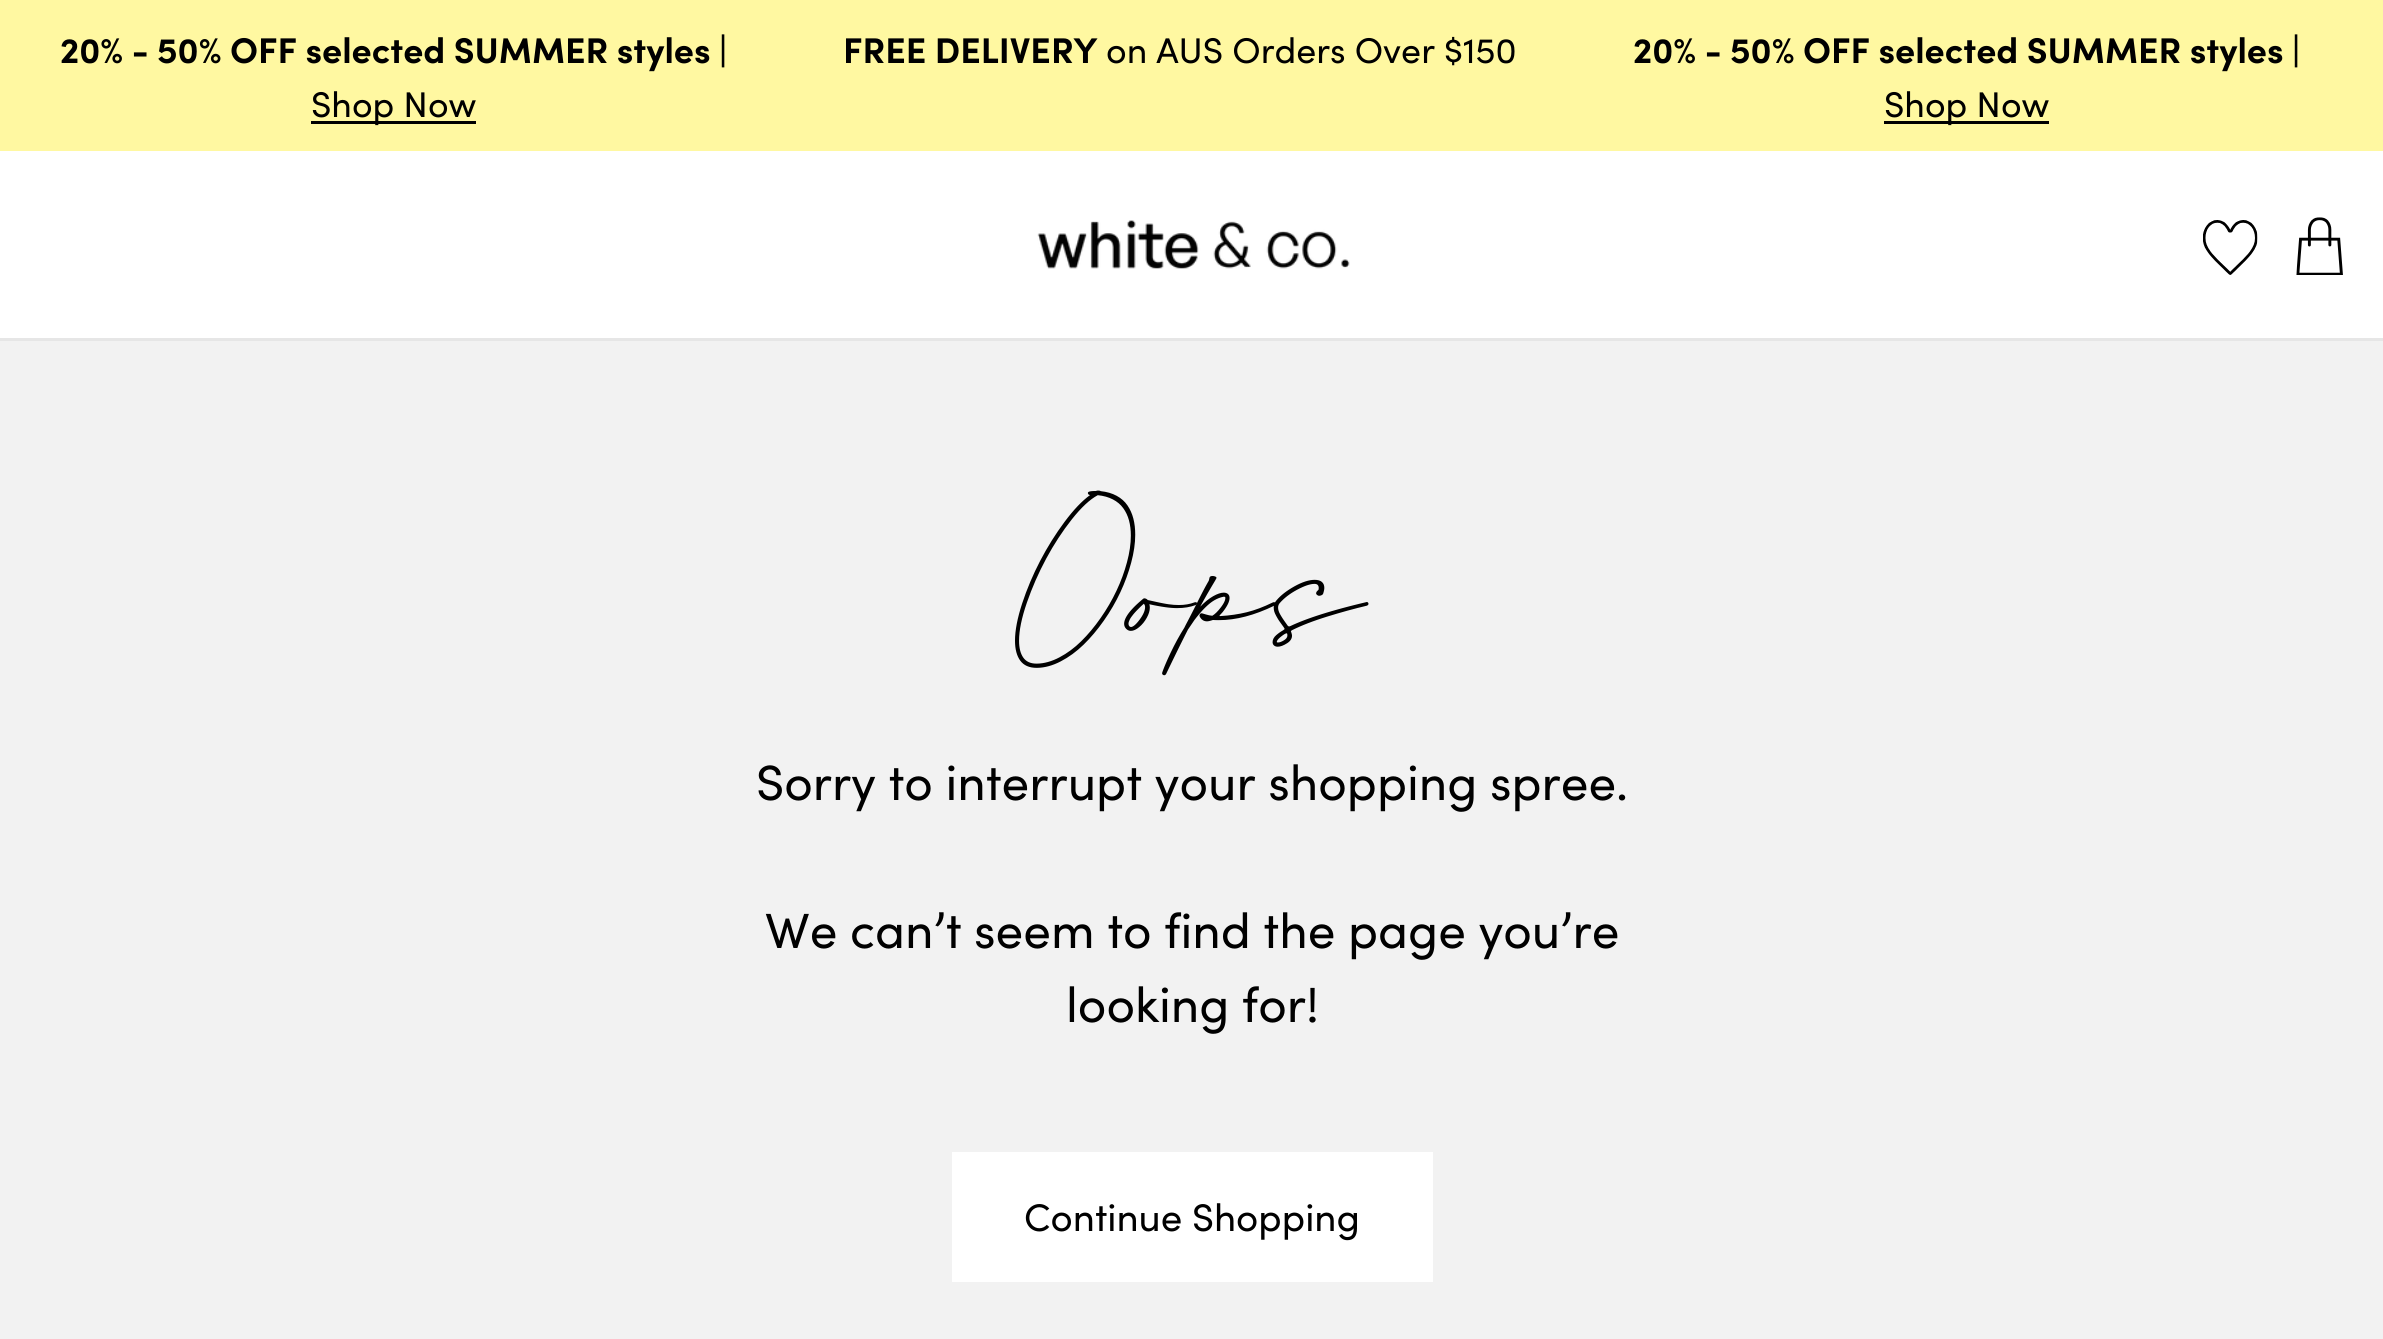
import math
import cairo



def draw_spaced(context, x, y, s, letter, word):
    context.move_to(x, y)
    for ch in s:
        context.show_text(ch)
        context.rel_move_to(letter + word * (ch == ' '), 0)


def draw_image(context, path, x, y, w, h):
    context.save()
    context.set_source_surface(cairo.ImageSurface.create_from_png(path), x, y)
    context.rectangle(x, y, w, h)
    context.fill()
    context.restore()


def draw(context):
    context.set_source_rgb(242 / 255, 242 / 255, 242 / 255)
    context.paint()
    context.set_source_rgb(1, 248 / 255, 161 / 255)
    context.rectangle(0, 0, 2383, 151)
    context.fill()
    context.set_source_rgb(0, 0, 0)
    context.rectangle(311, 121, 165, 3)
    context.fill()
    context.rectangle(1884, 121, 165, 3)
    context.fill()
    context.set_source_rgb(1, 1, 1)
    context.rectangle(0, 151, 2383, 187)
    context.fill()
    context.set_source_rgb(230 / 255, 230 / 255, 230 / 255)
    context.rectangle(0, 338, 2383, 3)
    context.fill()
    draw_image(context, "images/1.png", 1037, 220, 313, 49)
    draw_image(context, "images/2.png", 2203, 220, 55, 55)
    draw_image(context, "images/3.png", 2296, 217, 47, 58)
    context.set_source_rgb(1, 1, 1)
    context.rectangle(952, 1152, 481, 130)
    context.fill()
    context.select_font_face("Sofia", cairo.FontSlant.NORMAL, cairo.FontWeight.BOLD)
    context.set_font_size(35.75)
    context.set_source_rgb(0, 0, 0)
    context.move_to(60, 63)
    context.show_text("20% - 50% OFF selected SUMMER styles |")
    context.select_font_face("Sofia")
    context.move_to(311, 117)
    context.show_text("Shop Now")
    context.select_font_face("Sofia", cairo.FontSlant.NORMAL, cairo.FontWeight.BOLD)
    context.move_to(843, 63)
    context.show_text("FREE DELIVERY")
    context.select_font_face("Sofia")
    context.move_to(1106, 63)
    context.show_text("on AUS Orders Over $150")
    context.select_font_face("Sofia", cairo.FontSlant.NORMAL, cairo.FontWeight.BOLD)
    context.move_to(1633, 63)
    context.show_text("20% - 50% OFF selected SUMMER styles |")
    context.select_font_face("Sofia")
    context.move_to(1884, 117)
    context.show_text("Shop Now")
    context.select_font_face("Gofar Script")
    context.set_font_size(176)
    draw_spaced(context, 1015, 643, "Oops", 2.5, 0)
    context.select_font_face("Sofia")
    context.set_font_size(49.5)
    context.move_to(756, 800)
    context.show_text("Sorry to interrupt your shopping spree.")
    context.move_to(765, 948)
    context.show_text("We can’t seem to find the page you’re")
    context.move_to(1066, 1022)
    context.show_text("looking for!")
    context.set_font_size(38.5)
    context.move_to(1024, 1231)
    context.show_text("Continue Shopping")


surface = cairo.ImageSurface(cairo.Format.RGB24, 2383, 1339)
context = cairo.Context(surface)
options = cairo.FontOptions()
options.set_hint_metrics(cairo.HintMetrics.OFF)
options.set_hint_style(cairo.HintStyle.NONE)
context.set_font_options(options)
context.set_miter_limit(4)
draw(context)
surface.write_to_png("out.png")
